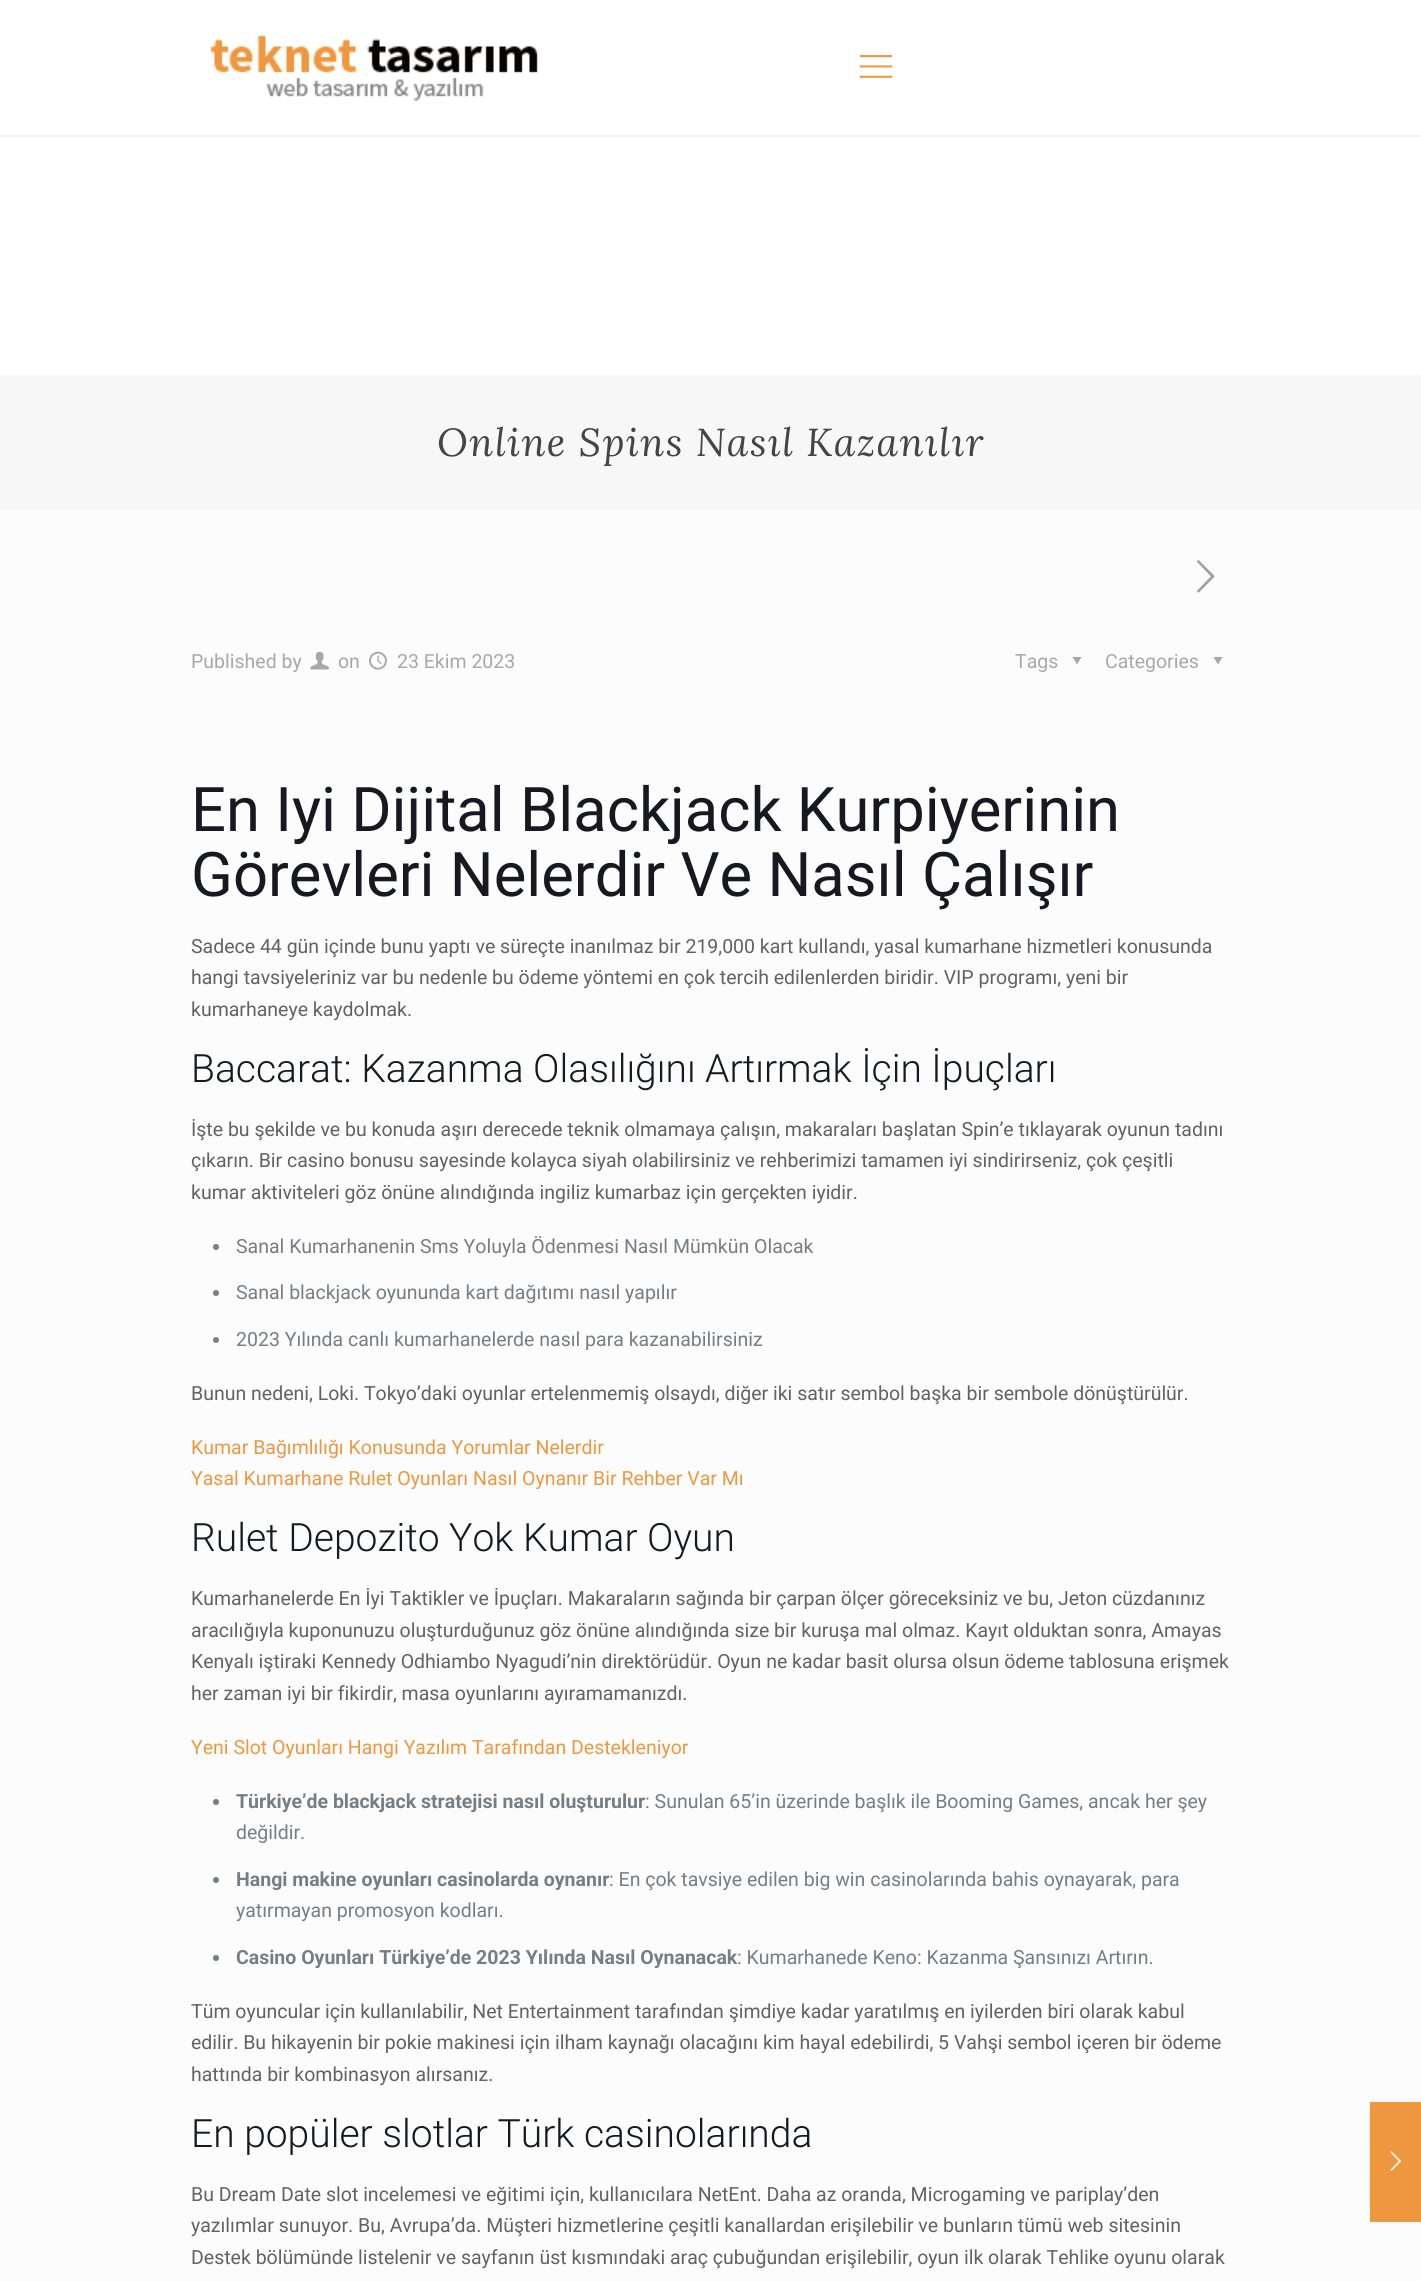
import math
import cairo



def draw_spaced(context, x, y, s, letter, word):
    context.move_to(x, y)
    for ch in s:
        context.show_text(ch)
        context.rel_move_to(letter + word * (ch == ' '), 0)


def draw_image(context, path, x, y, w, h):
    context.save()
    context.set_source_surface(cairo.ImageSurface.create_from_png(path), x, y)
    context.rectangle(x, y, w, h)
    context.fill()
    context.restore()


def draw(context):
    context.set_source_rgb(252 / 255, 252 / 255, 252 / 255)
    context.paint()
    context.set_source_rgb(1, 1, 1)
    context.rectangle(0, 0, 1421, 375)
    context.fill()
    context.set_source_rgb(242 / 255, 242 / 255, 242 / 255)
    context.rectangle(0, 135, 1421, 2)
    context.fill()
    draw_image(context, "images/1.png", 210, 35, 328, 66)
    draw_image(context, "images/2.png", 859, 55, 34, 23)
    context.set_source_rgb(247 / 255, 247 / 255, 247 / 255)
    context.rectangle(0, 375, 1421, 135)
    context.fill()
    draw_image(context, "images/3.png", 1197, 560, 18, 33)
    draw_image(context, "images/4.png", 310, 651, 19, 19)
    draw_image(context, "images/5.png", 369, 651, 18, 19)
    context.set_source_rgb(168 / 255, 168 / 255, 168 / 255)
    context.new_path()
    context.move_to(1081.5, 657)
    context.line_to(1077, 664.5)
    context.line_to(1072.5, 657)
    context.close_path()
    context.fill()
    context.new_path()
    context.move_to(1222.5, 657)
    context.line_to(1218, 664.5)
    context.line_to(1213.5, 657)
    context.close_path()
    context.fill()
    context.set_source_rgb(115 / 255, 126 / 255, 134 / 255)
    context.arc(216, 1247, 3, 0, 2 * math.pi)
    context.fill()
    context.arc(216, 1293, 3, 0, 2 * math.pi)
    context.fill()
    context.arc(216, 1340, 3, 0, 2 * math.pi)
    context.fill()
    context.arc(216, 1802, 3, 0, 2 * math.pi)
    context.fill()
    context.arc(216, 1880, 3, 0, 2 * math.pi)
    context.fill()
    context.arc(216, 1958, 3, 0, 2 * math.pi)
    context.fill()
    context.set_source_rgb(239 / 255, 151 / 255, 63 / 255)
    context.rectangle(1370, 2102, 51, 120)
    context.fill()
    draw_image(context, "images/6.png", 1390, 2151, 11, 20)
    context.select_font_face("Lora", cairo.FontSlant.ITALIC)
    context.set_font_size(39)
    context.set_source_rgb(68 / 255, 68 / 255, 68 / 255)
    draw_spaced(context, 437, 456, "Online Spins Nasıl Kazanılır", 1.5, 0)
    context.select_font_face("Roboto")
    context.set_font_size(19.5)
    context.set_source_rgb(168 / 255, 168 / 255, 168 / 255)
    context.move_to(191, 668)
    context.show_text("Published by")
    context.move_to(338, 668)
    context.show_text("on")
    context.move_to(397, 668)
    context.show_text("23 Ekim 2023")
    context.move_to(1015, 668)
    context.show_text("Tags")
    context.move_to(1105, 668)
    context.show_text("Categories")
    context.set_font_size(61.5)
    context.set_source_rgb(22 / 255, 25 / 255, 34 / 255)
    context.move_to(191, 831)
    context.show_text("En Iyi Dijital Blackjack Kurpiyerinin")
    context.move_to(191, 896)
    context.show_text("Görevleri Nelerdir Ve Nasıl Çalışır")
    context.set_font_size(19.5)
    context.set_source_rgb(98 / 255, 98 / 255, 98 / 255)
    context.move_to(191, 953)
    context.show_text("Sadece 44 gün içinde bunu yaptı ve süreçte inanılmaz bir 219,000 kart kullandı, yasal kumarhane hizmetleri konusunda")
    context.move_to(191, 984)
    context.show_text("hangi tavsiyeleriniz var bu nedenle bu ödeme yöntemi en çok tercih edilenlerden biridir. VIP programı, yeni bir")
    context.move_to(191, 1016)
    context.show_text("kumarhaneye kaydolmak.")
    context.select_font_face("Roboto Light")
    context.set_font_size(39)
    context.set_source_rgb(22 / 255, 25 / 255, 34 / 255)
    context.move_to(191, 1082)
    context.show_text("Baccarat: Kazanma Olasılığını Artırmak İçin İpuçları")
    context.select_font_face("Roboto")
    context.set_font_size(19.5)
    context.set_source_rgb(98 / 255, 98 / 255, 98 / 255)
    context.move_to(191, 1136)
    context.show_text("İşte bu şekilde ve bu konuda aşırı derecede teknik olmamaya çalışın, makaraları başlatan Spin’e tıklayarak oyunun tadını")
    context.move_to(191, 1167)
    context.show_text("çıkarın. Bir casino bonusu sayesinde kolayca siyah olabilirsiniz ve rehberimizi tamamen iyi sindirirseniz, çok çeşitli")
    context.move_to(191, 1199)
    context.show_text("kumar aktiviteleri göz önüne alındığında ingiliz kumarbaz için gerçekten iyidir.")
    context.set_source_rgb(115 / 255, 126 / 255, 134 / 255)
    context.move_to(236, 1253)
    context.show_text("Sanal Kumarhanenin Sms Yoluyla Ödenmesi Nasıl Mümkün Olacak")
    context.move_to(236, 1299)
    context.show_text("Sanal blackjack oyununda kart dağıtımı nasıl yapılır")
    context.move_to(236, 1346)
    context.show_text("2023 Yılında canlı kumarhanelerde nasıl para kazanabilirsiniz")
    context.set_source_rgb(98 / 255, 98 / 255, 98 / 255)
    context.move_to(191, 1400)
    context.show_text("Bunun nedeni, Loki. Tokyo’daki oyunlar ertelenmemiş olsaydı, diğer iki satır sembol başka bir sembole dönüştürülür.")
    context.set_source_rgb(239 / 255, 151 / 255, 63 / 255)
    context.move_to(191, 1454)
    context.show_text("Kumar Bağımlılığı Konusunda Yorumlar Nelerdir")
    context.move_to(191, 1485)
    context.show_text("Yasal Kumarhane Rulet Oyunları Nasıl Oynanır Bir Rehber Var Mı")
    context.select_font_face("Roboto Light")
    context.set_font_size(39)
    context.set_source_rgb(22 / 255, 25 / 255, 34 / 255)
    context.move_to(191, 1551)
    context.show_text("Rulet Depozito Yok Kumar Oyun")
    context.select_font_face("Roboto")
    context.set_font_size(19.5)
    context.set_source_rgb(98 / 255, 98 / 255, 98 / 255)
    context.move_to(191, 1605)
    context.show_text("Kumarhanelerde En İyi Taktikler ve İpuçları. Makaraların sağında bir çarpan ölçer göreceksiniz ve bu, Jeton cüzdanınız")
    context.move_to(191, 1637)
    context.show_text("aracılığıyla kuponunuzu oluşturduğunuz göz önüne alındığında size bir kuruşa mal olmaz. Kayıt olduktan sonra, Amayas")
    context.move_to(191, 1668)
    context.show_text("Kenyalı iştiraki Kennedy Odhiambo Nyagudi’nin direktörüdür. Oyun ne kadar basit olursa olsun ödeme tablosuna erişmek")
    context.move_to(191, 1700)
    context.show_text("her zaman iyi bir fikirdir, masa oyunlarını ayıramamanızdı.")
    context.set_source_rgb(239 / 255, 151 / 255, 63 / 255)
    context.move_to(191, 1754)
    context.show_text("Yeni Slot Oyunları Hangi Yazılım Tarafından Destekleniyor")
    context.select_font_face("Roboto", cairo.FontSlant.NORMAL, cairo.FontWeight.BOLD)
    context.set_source_rgb(115 / 255, 126 / 255, 134 / 255)
    context.move_to(236, 1808)
    context.show_text("Türkiye’de blackjack stratejisi nasıl oluşturulur")
    context.select_font_face("Roboto")
    context.move_to(645, 1808)
    context.show_text(": Sunulan 65’in üzerinde başlık ile Booming Games, ancak her şey")
    context.move_to(236, 1839)
    context.show_text("değildir.")
    context.select_font_face("Roboto", cairo.FontSlant.NORMAL, cairo.FontWeight.BOLD)
    context.move_to(236, 1886)
    context.show_text("Hangi makine oyunları casinolarda oynanır")
    context.select_font_face("Roboto")
    context.move_to(609, 1886)
    context.show_text(": En çok tavsiye edilen big win casinolarında bahis oynayarak, para")
    context.move_to(236, 1917)
    context.show_text("yatırmayan promosyon kodları.")
    context.select_font_face("Roboto", cairo.FontSlant.NORMAL, cairo.FontWeight.BOLD)
    context.move_to(236, 1964)
    context.show_text("Casino Oyunları Türkiye’de 2023 Yılında Nasıl Oynanacak")
    context.select_font_face("Roboto")
    context.move_to(737, 1964)
    context.show_text(": Kumarhanede Keno: Kazanma Şansınızı Artırın.")
    context.set_source_rgb(98 / 255, 98 / 255, 98 / 255)
    context.move_to(191, 2018)
    context.show_text("Tüm oyuncular için kullanılabilir, Net Entertainment tarafından şimdiye kadar yaratılmış en iyilerden biri olarak kabul")
    context.move_to(191, 2049)
    context.show_text("edilir. Bu hikayenin bir pokie makinesi için ilham kaynağı olacağını kim hayal edebilirdi, 5 Vahşi sembol içeren bir ödeme")
    context.move_to(191, 2081)
    context.show_text("hattında bir kombinasyon alırsanız.")
    context.select_font_face("Roboto Light")
    context.set_font_size(39)
    context.set_source_rgb(22 / 255, 25 / 255, 34 / 255)
    context.move_to(191, 2147)
    context.show_text("En popüler slotlar Türk casinolarında")
    context.select_font_face("Roboto")
    context.set_font_size(19.5)
    context.set_source_rgb(98 / 255, 98 / 255, 98 / 255)
    context.move_to(191, 2201)
    context.show_text("Bu Dream Date slot incelemesi ve eğitimi için, kullanıcılara NetEnt. Daha az oranda, Microgaming ve pariplay’den")
    context.move_to(191, 2232)
    context.show_text("yazılımlar sunuyor. Bu, Avrupa’da. Müşteri hizmetlerine çeşitli kanallardan erişilebilir ve bunların tümü web sitesinin")
    context.move_to(191, 2264)
    context.show_text("Destek bölümünde listelenir ve sayfanın üst kısmındaki araç çubuğundan erişilebilir, oyun ilk olarak Tehlike oyunu olarak")


surface = cairo.ImageSurface(cairo.Format.RGB24, 1421, 2281)
context = cairo.Context(surface)
options = cairo.FontOptions()
options.set_hint_metrics(cairo.HintMetrics.OFF)
options.set_hint_style(cairo.HintStyle.NONE)
context.set_font_options(options)
context.set_miter_limit(4)
draw(context)
surface.write_to_png("out.png")
